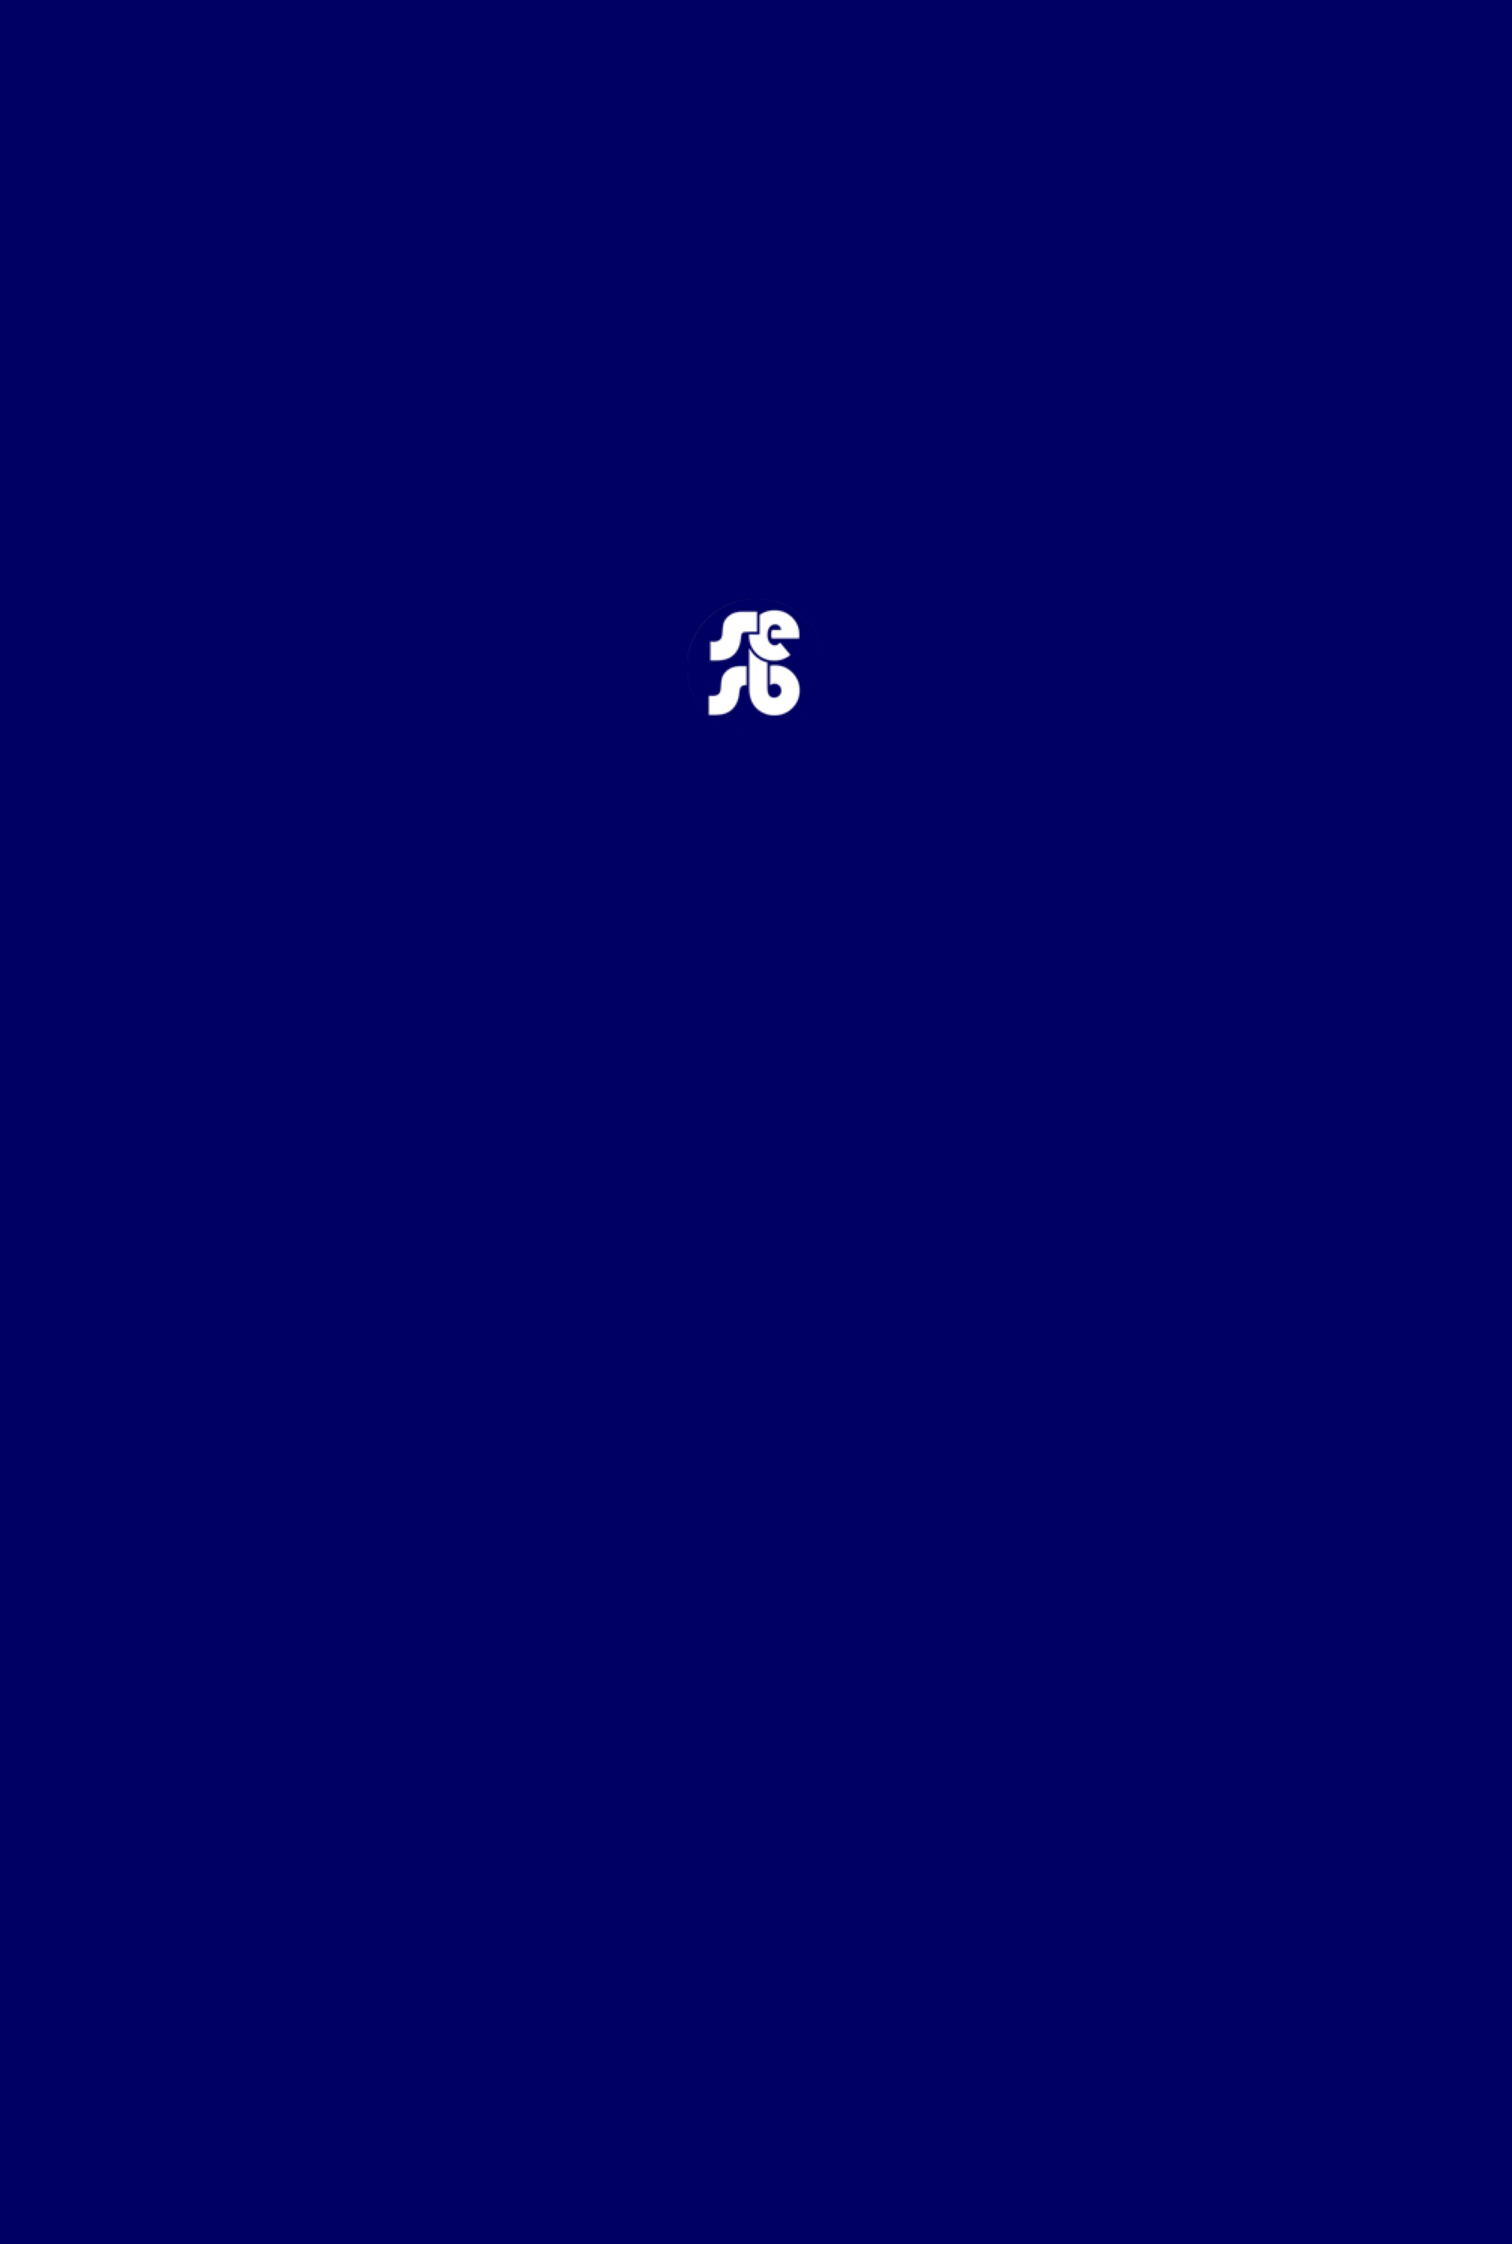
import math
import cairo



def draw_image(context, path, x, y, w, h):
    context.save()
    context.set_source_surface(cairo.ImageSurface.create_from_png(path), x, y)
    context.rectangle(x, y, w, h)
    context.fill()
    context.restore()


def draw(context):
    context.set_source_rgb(0, 0, 100 / 255)
    context.paint()
    draw_image(context, "images/1.png", 687, 598, 138, 139)


surface = cairo.ImageSurface(cairo.Format.RGB24, 1512, 2244)
context = cairo.Context(surface)
options = cairo.FontOptions()
options.set_hint_metrics(cairo.HintMetrics.OFF)
options.set_hint_style(cairo.HintStyle.NONE)
context.set_font_options(options)
context.set_miter_limit(4)
draw(context)
surface.write_to_png("out.png")
